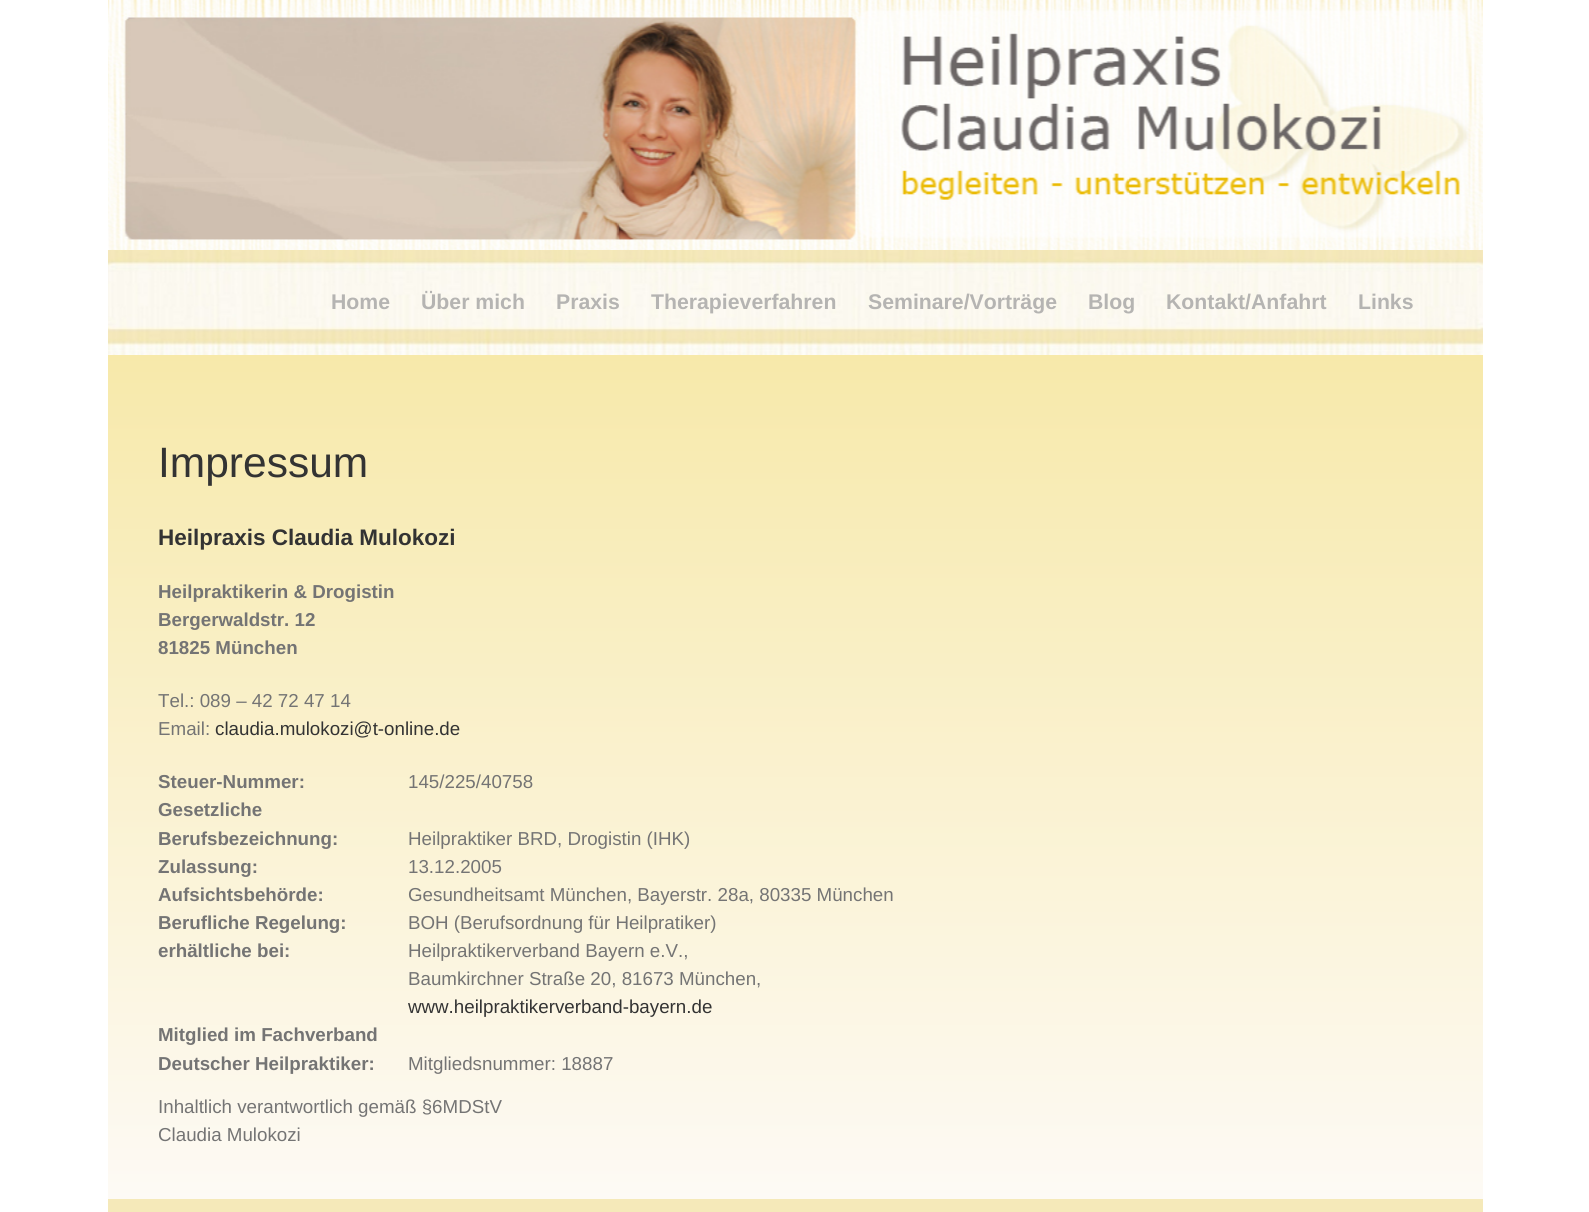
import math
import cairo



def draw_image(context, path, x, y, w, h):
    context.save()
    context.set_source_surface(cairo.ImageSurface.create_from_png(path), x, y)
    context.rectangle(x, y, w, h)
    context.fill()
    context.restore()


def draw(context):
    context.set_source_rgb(1, 1, 1)
    context.paint()
    draw_image(context, "images/1.png", 108, 0, 1375, 250)
    draw_image(context, "images/2.png", 108, 250, 1375, 105)
    gradient = cairo.LinearGradient(795, 355, 795, 1199)
    gradient.add_color_stop_rgba(0, 247 / 255, 233 / 255, 170 / 255, 1)
    gradient.add_color_stop_rgba(1, 253 / 255, 250 / 255, 245 / 255, 1)
    context.set_source(gradient)
    context.rectangle(108, 355, 1375, 844)
    context.fill()
    context.set_source_rgb(245 / 255, 233 / 255, 185 / 255)
    context.rectangle(108, 1199, 1375, 13)
    context.fill()
    context.select_font_face("Liberation Sans", cairo.FontSlant.NORMAL, cairo.FontWeight.BOLD)
    context.set_font_size(21.25)
    context.set_source_rgb(181 / 255, 180 / 255, 178 / 255)
    context.move_to(331, 309)
    context.show_text("Home")
    context.move_to(421, 309)
    context.show_text("Über mich")
    context.move_to(556, 309)
    context.show_text("Praxis")
    context.move_to(651, 309)
    context.show_text("Therapieverfahren")
    context.move_to(868, 309)
    context.show_text("Seminare/Vorträge")
    context.move_to(1088, 309)
    context.show_text("Blog")
    context.move_to(1166, 309)
    context.show_text("Kontakt/Anfahrt")
    context.move_to(1358, 309)
    context.show_text("Links")
    context.select_font_face("Liberation Sans")
    context.set_font_size(42.5)
    context.set_source_rgb(51 / 255, 51 / 255, 51 / 255)
    context.move_to(158, 477)
    context.show_text("Impressum")
    context.select_font_face("Liberation Sans", cairo.FontSlant.NORMAL, cairo.FontWeight.BOLD)
    context.set_font_size(22.5)
    context.move_to(158, 545)
    context.show_text("Heilpraxis Claudia Mulokozi")
    context.set_font_size(18.75)
    context.set_source_rgb(116 / 255, 116 / 255, 116 / 255)
    context.move_to(158, 598)
    context.show_text("Heilpraktikerin & Drogistin")
    context.move_to(158, 626)
    context.show_text("Bergerwaldstr. 12")
    context.move_to(158, 654)
    context.show_text("81825 München")
    context.select_font_face("Liberation Sans")
    context.move_to(158, 707)
    context.show_text("Tel.: 089 – 42 72 47 14")
    context.move_to(158, 735)
    context.show_text("Email:")
    context.set_source_rgb(51 / 255, 51 / 255, 51 / 255)
    context.move_to(215, 735)
    context.show_text("claudia.mulokozi@t-online.de")
    context.select_font_face("Liberation Sans", cairo.FontSlant.NORMAL, cairo.FontWeight.BOLD)
    context.set_source_rgb(116 / 255, 116 / 255, 116 / 255)
    context.move_to(158, 788)
    context.show_text("Steuer-Nummer:")
    context.select_font_face("Liberation Sans")
    context.move_to(408, 788)
    context.show_text("145/225/40758")
    context.select_font_face("Liberation Sans", cairo.FontSlant.NORMAL, cairo.FontWeight.BOLD)
    context.move_to(158, 816)
    context.show_text("Gesetzliche")
    context.move_to(158, 845)
    context.show_text("Berufsbezeichnung:")
    context.select_font_face("Liberation Sans")
    context.move_to(408, 845)
    context.show_text("Heilpraktiker BRD, Drogistin (IHK)")
    context.select_font_face("Liberation Sans", cairo.FontSlant.NORMAL, cairo.FontWeight.BOLD)
    context.move_to(158, 873)
    context.show_text("Zulassung:")
    context.select_font_face("Liberation Sans")
    context.move_to(408, 873)
    context.show_text("13.12.2005")
    context.select_font_face("Liberation Sans", cairo.FontSlant.NORMAL, cairo.FontWeight.BOLD)
    context.move_to(158, 901)
    context.show_text("Aufsichtsbehörde:")
    context.select_font_face("Liberation Sans")
    context.move_to(408, 901)
    context.show_text("Gesundheitsamt München, Bayerstr. 28a, 80335 München")
    context.select_font_face("Liberation Sans", cairo.FontSlant.NORMAL, cairo.FontWeight.BOLD)
    context.move_to(158, 929)
    context.show_text("Berufliche Regelung:")
    context.select_font_face("Liberation Sans")
    context.move_to(408, 929)
    context.show_text("BOH (Berufsordnung für Heilpratiker)")
    context.select_font_face("Liberation Sans", cairo.FontSlant.NORMAL, cairo.FontWeight.BOLD)
    context.move_to(158, 957)
    context.show_text("erhältliche bei:")
    context.select_font_face("Liberation Sans")
    context.move_to(408, 957)
    context.show_text("Heilpraktikerverband Bayern e.V.,")
    context.move_to(408, 985)
    context.show_text("Baumkirchner Straße 20, 81673 München,")
    context.set_source_rgb(51 / 255, 51 / 255, 51 / 255)
    context.move_to(408, 1013)
    context.show_text("www.heilpraktikerverband-bayern.de")
    context.select_font_face("Liberation Sans", cairo.FontSlant.NORMAL, cairo.FontWeight.BOLD)
    context.set_source_rgb(116 / 255, 116 / 255, 116 / 255)
    context.move_to(158, 1041)
    context.show_text("Mitglied im Fachverband")
    context.move_to(158, 1070)
    context.show_text("Deutscher Heilpraktiker:")
    context.select_font_face("Liberation Sans")
    context.move_to(408, 1070)
    context.show_text("Mitgliedsnummer: 18887")
    context.move_to(158, 1113)
    context.show_text("Inhaltlich verantwortlich gemäß §6MDStV")
    context.move_to(158, 1141)
    context.show_text("Claudia Mulokozi")


surface = cairo.ImageSurface(cairo.Format.RGB24, 1589, 1212)
context = cairo.Context(surface)
options = cairo.FontOptions()
options.set_hint_metrics(cairo.HintMetrics.OFF)
options.set_hint_style(cairo.HintStyle.NONE)
context.set_font_options(options)
context.set_miter_limit(4)
draw(context)
surface.write_to_png("out.png")
